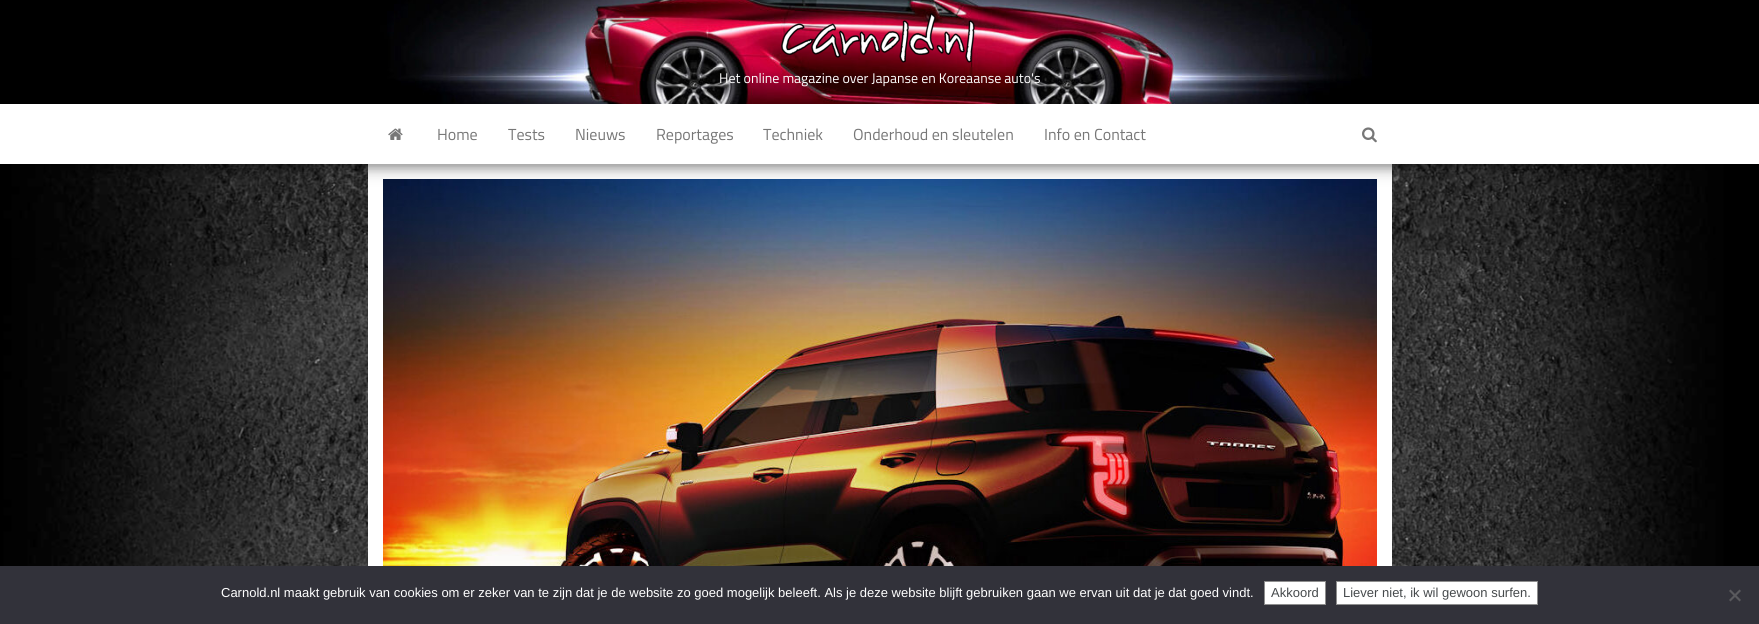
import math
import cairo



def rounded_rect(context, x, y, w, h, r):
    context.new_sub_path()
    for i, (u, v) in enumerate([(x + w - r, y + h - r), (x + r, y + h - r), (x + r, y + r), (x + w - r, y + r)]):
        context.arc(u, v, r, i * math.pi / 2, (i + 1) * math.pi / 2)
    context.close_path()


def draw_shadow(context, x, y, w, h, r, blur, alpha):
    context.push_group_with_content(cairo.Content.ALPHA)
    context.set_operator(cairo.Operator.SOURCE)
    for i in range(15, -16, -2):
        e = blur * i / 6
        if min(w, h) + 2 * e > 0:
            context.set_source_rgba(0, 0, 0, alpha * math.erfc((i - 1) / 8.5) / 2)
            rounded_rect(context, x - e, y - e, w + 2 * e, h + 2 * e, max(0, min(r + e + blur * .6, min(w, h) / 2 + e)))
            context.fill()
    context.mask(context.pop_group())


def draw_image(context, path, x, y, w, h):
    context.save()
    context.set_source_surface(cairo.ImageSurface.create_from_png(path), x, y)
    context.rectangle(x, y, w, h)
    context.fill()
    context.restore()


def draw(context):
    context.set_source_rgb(1, 1, 1)
    context.paint()
    draw_image(context, "images/1.png", 0, 164, 1759, 402)
    draw_image(context, "images/2.png", 0, 0, 1759, 104)
    draw_image(context, "images/3.png", 781, 13, 194, 50)
    context.set_source_rgb(1, 1, 1)
    context.rectangle(368, 164, 1024, 402)
    context.fill()
    context.set_source_rgb(0, 0, 0)
    draw_shadow(context, 5, 117, 1749, 50, 0, 5, 0.2)
    draw_shadow(context, 0, 107, 1759, 60, 0, 10, 0.12)
    draw_shadow(context, 12, 126, 1735, 36, 0, 10, 0.42)
    context.set_source_rgb(1, 1, 1)
    context.rectangle(0, 104, 1759, 60)
    context.fill()
    draw_image(context, "images/4.png", 388, 128, 15, 12)
    draw_image(context, "images/5.png", 1362, 127, 15, 16)
    draw_image(context, "images/6.png", 383, 179, 994, 387)
    context.set_source_rgb(50 / 255, 50 / 255, 58 / 255)
    context.rectangle(0, 566, 1759, 58)
    context.fill()
    context.set_source_rgb(1, 1, 1)
    context.rectangle(1264.5, 581.5, 61, 23)
    context.fill_preserve()
    context.set_source_rgb(142 / 255, 142 / 255, 142 / 255)
    context.set_line_width(1)
    context.stroke()
    context.set_source_rgb(1, 1, 1)
    context.rectangle(1336.5, 581.5, 201, 23)
    context.fill_preserve()
    context.set_source_rgb(142 / 255, 142 / 255, 142 / 255)
    context.stroke()
    context.set_source_rgb(89 / 255, 89 / 255, 93 / 255)
    context.new_path()
    context.move_to(1739.5, 589.5)
    context.line_to(1741, 591)
    context.line_to(1730.5, 601.5)
    context.line_to(1729, 600)
    context.close_path()
    context.fill()
    context.new_path()
    context.move_to(1729, 591)
    context.line_to(1730.5, 589.5)
    context.line_to(1741, 600)
    context.line_to(1739.5, 601.5)
    context.close_path()
    context.fill()
    context.select_font_face("Titillium Web")
    context.set_font_size(14)
    context.set_source_rgb(1, 1, 1)
    context.move_to(719, 83)
    context.show_text("Het online magazine over Japanse en Koreaanse auto's")
    context.set_font_size(16)
    context.set_source_rgb(119 / 255, 119 / 255, 119 / 255)
    context.move_to(437, 140)
    context.show_text("Home")
    context.move_to(508, 140)
    context.show_text("Tests")
    context.move_to(575, 140)
    context.show_text("Nieuws")
    context.move_to(656, 140)
    context.show_text("Reportages")
    context.move_to(763, 140)
    context.show_text("Techniek")
    context.move_to(853, 140)
    context.show_text("Onderhoud en sleutelen")
    context.move_to(1044, 140)
    context.show_text("Info en Contact")
    context.select_font_face("Liberation Sans")
    context.set_font_size(13)
    context.set_source_rgb(1, 1, 1)
    context.move_to(221, 597)
    context.show_text("Carnold.nl maakt gebruik van cookies om er zeker van te zijn dat je de website zo goed mogelijk beleeft. Als je deze website blijft gebruiken gaan we ervan uit dat je dat goed vindt.")
    context.set_source_rgb(70 / 255, 74 / 255, 76 / 255)
    context.move_to(1271, 597)
    context.show_text("Akkoord")
    context.move_to(1343, 597)
    context.show_text("Liever niet, ik wil gewoon surfen.")


surface = cairo.ImageSurface(cairo.Format.RGB24, 1759, 624)
context = cairo.Context(surface)
options = cairo.FontOptions()
options.set_hint_metrics(cairo.HintMetrics.OFF)
options.set_hint_style(cairo.HintStyle.NONE)
context.set_font_options(options)
context.set_miter_limit(4)
draw(context)
surface.write_to_png("out.png")
